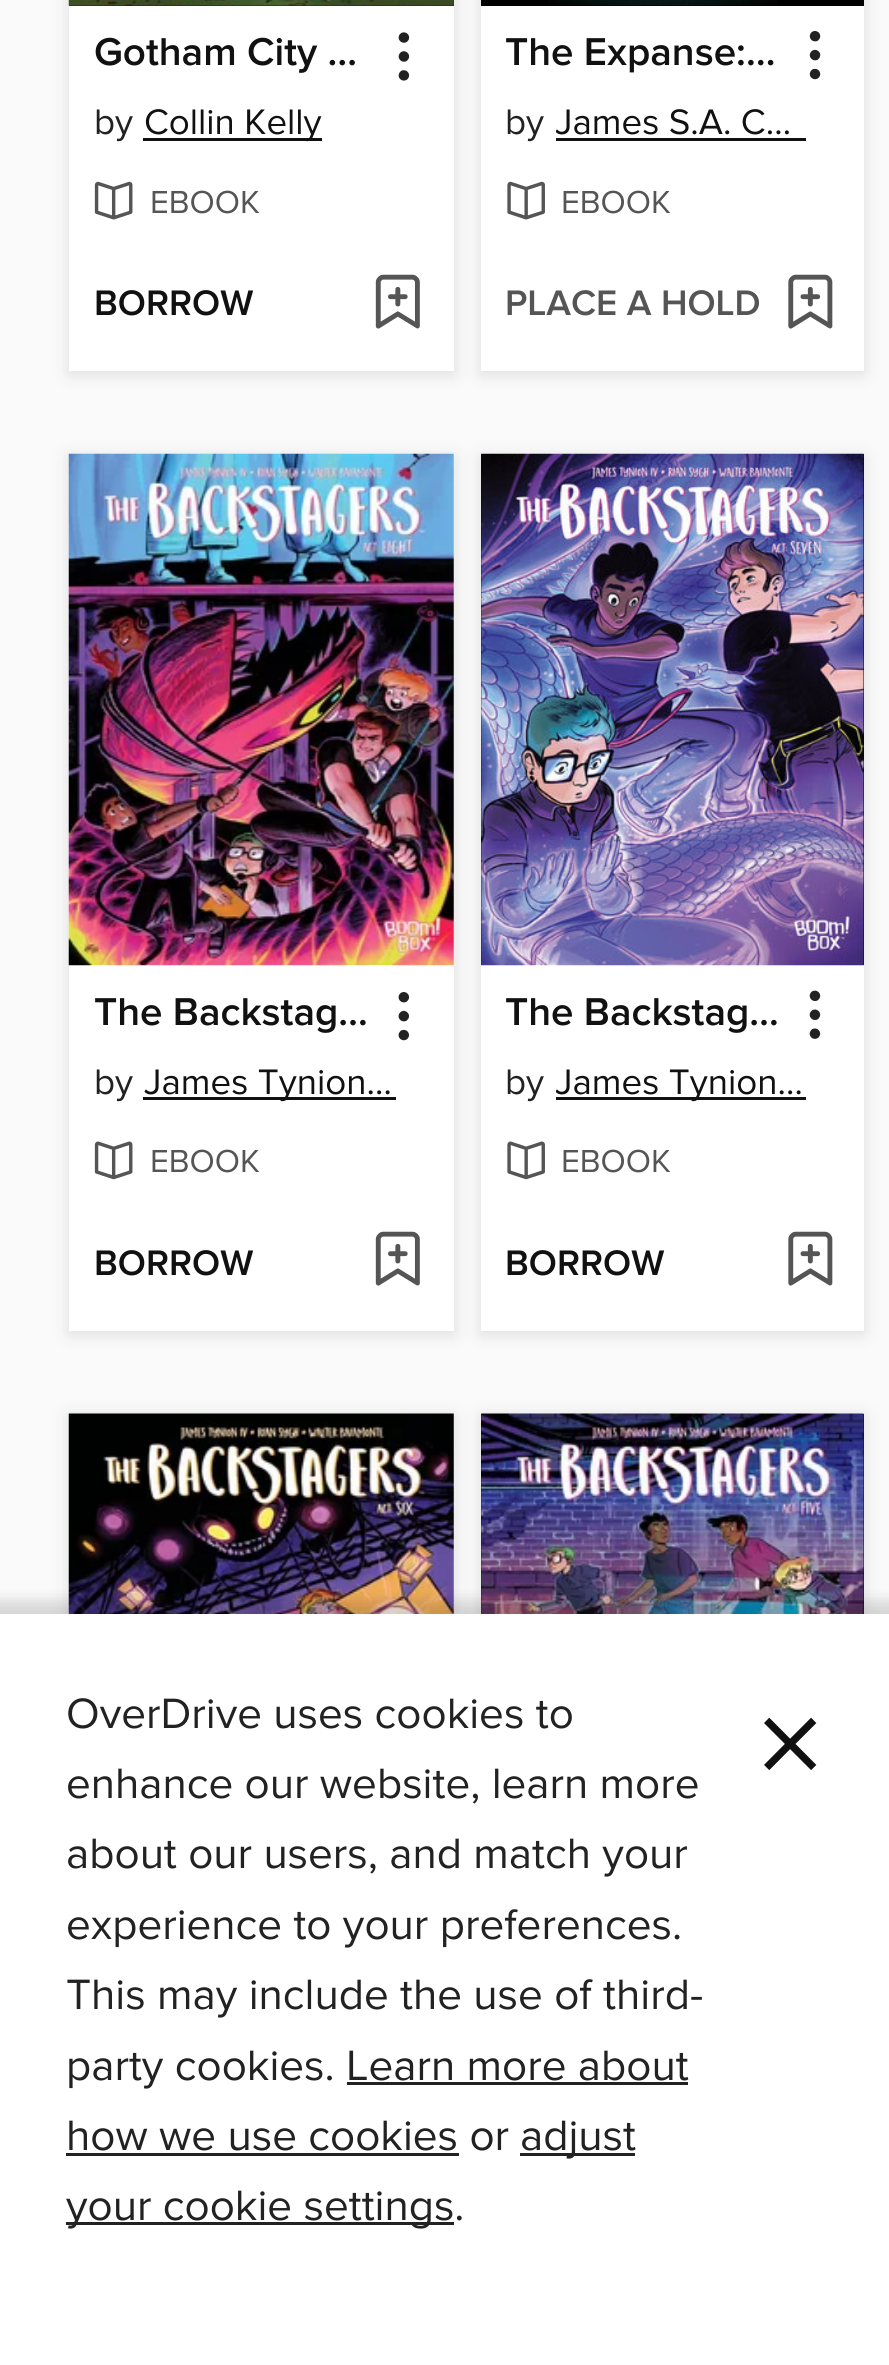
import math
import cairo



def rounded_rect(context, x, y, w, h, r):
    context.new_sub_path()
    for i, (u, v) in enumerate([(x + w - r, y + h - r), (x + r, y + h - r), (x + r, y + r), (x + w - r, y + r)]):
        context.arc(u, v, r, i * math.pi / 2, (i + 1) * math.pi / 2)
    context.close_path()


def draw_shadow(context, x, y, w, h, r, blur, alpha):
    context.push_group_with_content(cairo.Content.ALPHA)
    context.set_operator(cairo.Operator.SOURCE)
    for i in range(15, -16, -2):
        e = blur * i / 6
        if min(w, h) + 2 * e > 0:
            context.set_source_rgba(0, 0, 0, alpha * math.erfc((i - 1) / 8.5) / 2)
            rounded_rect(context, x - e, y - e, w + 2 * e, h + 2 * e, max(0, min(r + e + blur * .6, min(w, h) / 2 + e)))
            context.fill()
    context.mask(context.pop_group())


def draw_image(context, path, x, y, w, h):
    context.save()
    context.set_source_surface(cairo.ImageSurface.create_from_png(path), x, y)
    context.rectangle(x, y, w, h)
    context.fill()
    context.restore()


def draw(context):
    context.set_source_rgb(250 / 255, 250 / 255, 250 / 255)
    context.paint()
    context.set_source_rgb(221 / 255, 221 / 255, 221 / 255)
    draw_shadow(context, 69, -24, 385, 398, 0, 8, 1)
    context.set_source_rgb(1, 1, 1)
    context.rectangle(69, 6, 385, 365)
    context.fill()
    context.set_source_rgb(49 / 255, 27 / 255, 29 / 255)
    context.rectangle(69, 0, 385, 6)
    context.fill()
    draw_image(context, "images/1.png", 68, 0, 386, 6)
    draw_image(context, "images/2.png", 398, 32, 12, 49)
    context.set_source_rgb(17 / 255, 17 / 255, 17 / 255)
    context.rectangle(143, 138, 179, 3)
    context.fill()
    draw_image(context, "images/3.png", 94, 181, 39, 39)
    draw_image(context, "images/4.png", 375, 274, 45, 55)
    context.set_source_rgb(221 / 255, 221 / 255, 221 / 255)
    draw_shadow(context, 481, -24, 383, 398, 0, 8, 1)
    context.set_source_rgb(1, 1, 1)
    context.rectangle(481, 6, 383, 365)
    context.fill()
    context.set_source_rgb(0, 0, 0)
    context.rectangle(481, 0, 383, 6)
    context.fill()
    draw_image(context, "images/5.png", 548, 0, 229, 6)
    draw_image(context, "images/6.png", 809, 31, 12, 49)
    context.set_source_rgb(17 / 255, 17 / 255, 17 / 255)
    context.rectangle(556, 138, 250, 3)
    context.fill()
    draw_image(context, "images/7.png", 507, 181, 38, 39)
    draw_image(context, "images/8.png", 788, 274, 45, 55)
    context.set_source_rgb(221 / 255, 221 / 255, 221 / 255)
    draw_shadow(context, 69, 457, 385, 877, 0, 8, 1)
    context.set_source_rgb(1, 1, 1)
    context.rectangle(69, 454, 385, 877)
    context.fill()
    draw_image(context, "images/9.png", 68, 453, 386, 513)
    draw_image(context, "images/10.png", 398, 992, 11, 49)
    context.set_source_rgb(17 / 255, 17 / 255, 17 / 255)
    context.rectangle(143, 1097, 253, 3)
    context.fill()
    draw_image(context, "images/11.png", 94, 1141, 39, 39)
    draw_image(context, "images/4.png", 375, 1231, 45, 55)
    context.set_source_rgb(221 / 255, 221 / 255, 221 / 255)
    draw_shadow(context, 481, 457, 383, 877, 0, 8, 1)
    context.set_source_rgb(1, 1, 1)
    context.rectangle(481, 965, 383, 366)
    context.fill()
    context.set_source_rgb(7 / 255, 5 / 255, 8 / 255)
    context.rectangle(481, 454, 383, 511)
    context.fill()
    draw_image(context, "images/12.png", 481, 453, 383, 513)
    draw_image(context, "images/13.png", 809, 990, 12, 49)
    context.set_source_rgb(17 / 255, 17 / 255, 17 / 255)
    context.rectangle(556, 1097, 250, 3)
    context.fill()
    draw_image(context, "images/14.png", 507, 1141, 38, 39)
    draw_image(context, "images/8.png", 788, 1231, 45, 55)
    context.set_source_rgb(221 / 255, 221 / 255, 221 / 255)
    draw_shadow(context, 69, 1416, 385, 878, 0, 8, 1)
    draw_image(context, "images/15.png", 68, 1413, 386, 201)
    draw_shadow(context, 481, 1416, 383, 878, 0, 8, 1)
    context.set_source_rgb(18 / 255, 12 / 255, 40 / 255)
    context.rectangle(481, 1414, 383, 200)
    context.fill()
    draw_image(context, "images/16.png", 481, 1413, 383, 201)
    context.set_source_rgb(0, 0, 0)
    draw_shadow(context, -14, 1601, 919, 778, 0, 7, 0.15)
    context.set_source_rgb(1, 1, 1)
    context.rectangle(0, 1614, 889, 751)
    context.fill()
    context.set_source_rgb(34 / 255, 34 / 255, 34 / 255)
    context.rectangle(347, 2082, 341, 3)
    context.fill()
    context.rectangle(66, 2153, 393, 3)
    context.fill()
    context.rectangle(520, 2153, 115, 3)
    context.fill()
    context.rectangle(66, 2222, 388, 3)
    context.fill()
    context.select_font_face("Proxima Nova SemiBold")
    context.set_font_size(40.25)
    context.set_source_rgb(17 / 255, 17 / 255, 17 / 255)
    context.move_to(94, 65)
    context.show_text("Gotham City …")
    context.select_font_face("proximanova")
    context.set_font_size(36.75)
    context.set_source_rgb(34 / 255, 34 / 255, 34 / 255)
    context.move_to(94, 134)
    context.show_text("by")
    context.set_source_rgb(17 / 255, 17 / 255, 17 / 255)
    context.move_to(144, 134)
    context.show_text("Collin Kelly")
    context.set_font_size(33)
    context.set_source_rgb(85 / 255, 85 / 255, 85 / 255)
    context.move_to(150, 213)
    context.show_text("EBOOK")
    context.select_font_face("Proxima Nova SemiBold")
    context.set_font_size(36.75)
    context.set_source_rgb(17 / 255, 17 / 255, 17 / 255)
    context.move_to(94, 315)
    context.show_text("BORROW")
    context.set_font_size(40.25)
    context.move_to(505, 65)
    context.show_text("The Expanse:…")
    context.select_font_face("proximanova")
    context.set_font_size(36.75)
    context.set_source_rgb(34 / 255, 34 / 255, 34 / 255)
    context.move_to(505, 134)
    context.show_text("by")
    context.save()
    context.rectangle(556, 96, 250, 66)
    context.clip()
    context.set_source_rgb(17 / 255, 17 / 255, 17 / 255)
    context.move_to(555, 134)
    context.show_text("James S.A. C…")
    context.restore()
    context.set_font_size(33)
    context.set_source_rgb(85 / 255, 85 / 255, 85 / 255)
    context.move_to(561, 213)
    context.show_text("EBOOK")
    context.select_font_face("Proxima Nova SemiBold")
    context.set_font_size(36.75)
    context.move_to(505, 315)
    context.show_text("PLACE A HOLD")
    context.set_font_size(40.25)
    context.set_source_rgb(17 / 255, 17 / 255, 17 / 255)
    context.move_to(94, 1025)
    context.show_text("The Backstag…")
    context.select_font_face("proximanova")
    context.set_font_size(36.75)
    context.set_source_rgb(34 / 255, 34 / 255, 34 / 255)
    context.move_to(94, 1094)
    context.show_text("by")
    context.set_source_rgb(17 / 255, 17 / 255, 17 / 255)
    context.move_to(144, 1094)
    context.show_text("James Tynion…")
    context.set_font_size(33)
    context.set_source_rgb(85 / 255, 85 / 255, 85 / 255)
    context.move_to(150, 1172)
    context.show_text("EBOOK")
    context.select_font_face("Proxima Nova SemiBold")
    context.set_font_size(36.75)
    context.set_source_rgb(17 / 255, 17 / 255, 17 / 255)
    context.move_to(94, 1275)
    context.show_text("BORROW")
    context.set_font_size(40.25)
    context.move_to(505, 1025)
    context.show_text("The Backstag…")
    context.select_font_face("proximanova")
    context.set_font_size(36.75)
    context.set_source_rgb(34 / 255, 34 / 255, 34 / 255)
    context.move_to(505, 1094)
    context.show_text("by")
    context.save()
    context.rectangle(556, 1056, 250, 66)
    context.clip()
    context.set_source_rgb(17 / 255, 17 / 255, 17 / 255)
    context.move_to(555, 1094)
    context.show_text("James Tynion…")
    context.restore()
    context.set_font_size(33)
    context.set_source_rgb(85 / 255, 85 / 255, 85 / 255)
    context.move_to(561, 1172)
    context.show_text("EBOOK")
    context.select_font_face("Proxima Nova SemiBold")
    context.set_font_size(36.75)
    context.set_source_rgb(17 / 255, 17 / 255, 17 / 255)
    context.move_to(505, 1275)
    context.show_text("BORROW")
    context.select_font_face("proximanova")
    context.set_font_size(44)
    context.set_source_rgb(34 / 255, 34 / 255, 34 / 255)
    context.move_to(66, 1728)
    context.show_text("OverDrive uses cookies to")
    context.move_to(66, 1798)
    context.show_text("enhance our website, learn more")
    context.move_to(66, 1868)
    context.show_text("about our users, and match your")
    context.move_to(66, 1939)
    context.show_text("experience to your preferences.")
    context.move_to(66, 2009)
    context.show_text("This may include the use of third-")
    context.move_to(66, 2080)
    context.show_text("party cookies. Learn more about")
    context.move_to(66, 2150)
    context.show_text("how we use cookies or")
    context.move_to(520, 2150)
    context.show_text("adjust")
    context.move_to(66, 2220)
    context.show_text("your cookie settings.")
    context.set_font_size(141)
    context.set_source_rgb(17 / 255, 17 / 255, 17 / 255)
    context.move_to(755, 1791)
    context.show_text("×")


surface = cairo.ImageSurface(cairo.Format.RGB24, 889, 2365)
context = cairo.Context(surface)
options = cairo.FontOptions()
options.set_hint_metrics(cairo.HintMetrics.OFF)
options.set_hint_style(cairo.HintStyle.NONE)
context.set_font_options(options)
context.set_miter_limit(4)
draw(context)
surface.write_to_png("out.png")
